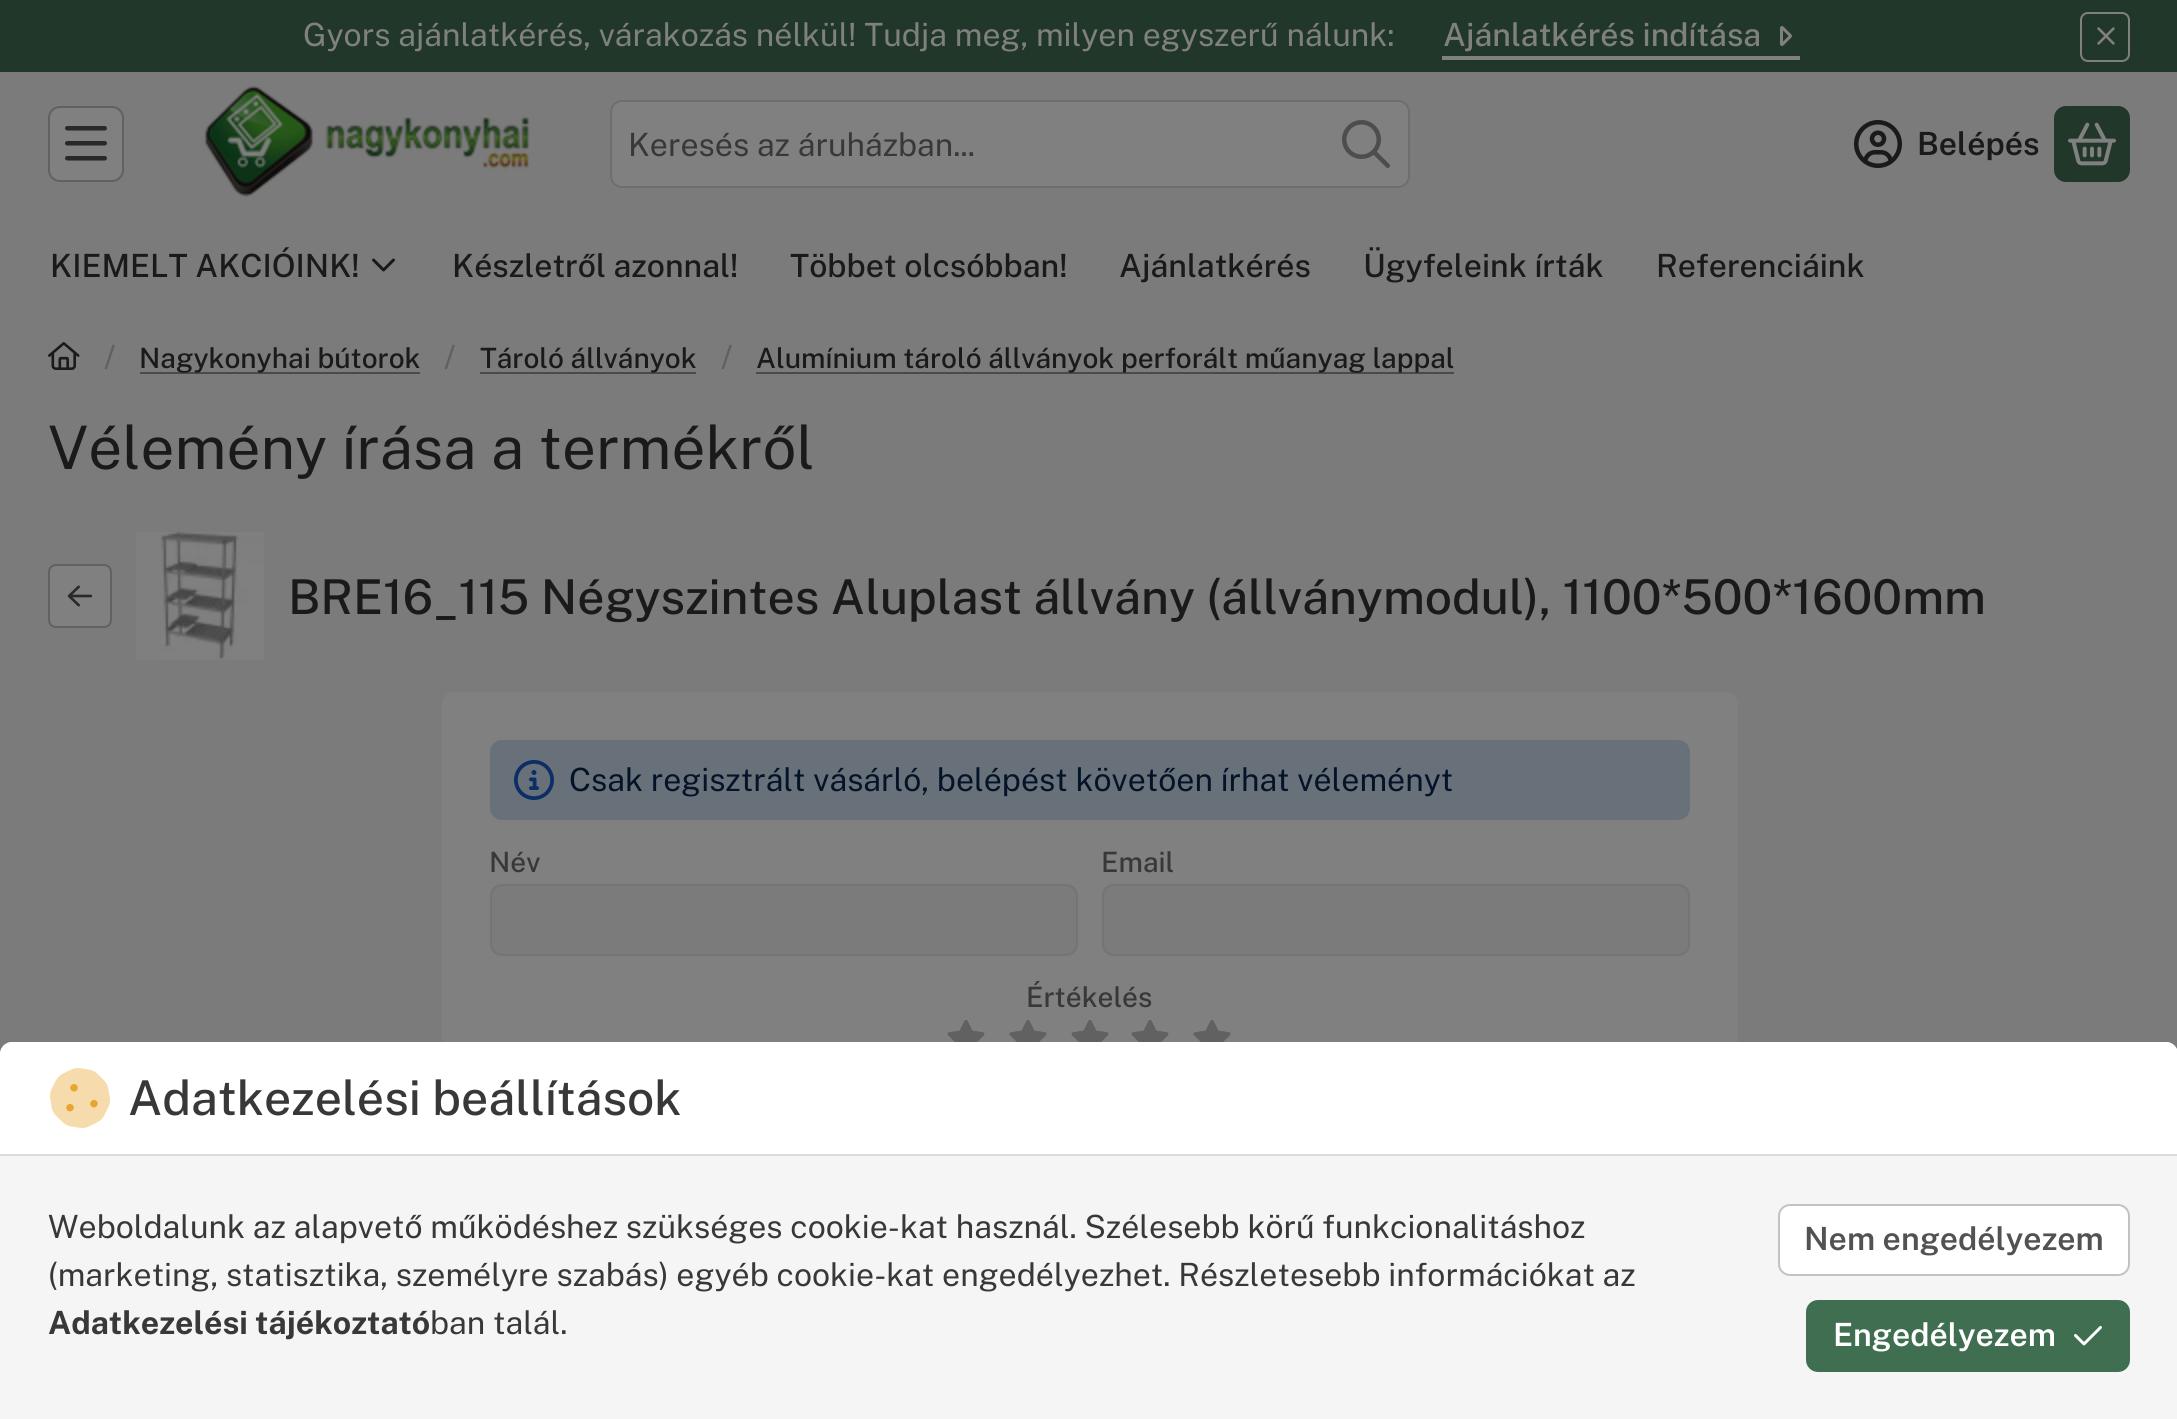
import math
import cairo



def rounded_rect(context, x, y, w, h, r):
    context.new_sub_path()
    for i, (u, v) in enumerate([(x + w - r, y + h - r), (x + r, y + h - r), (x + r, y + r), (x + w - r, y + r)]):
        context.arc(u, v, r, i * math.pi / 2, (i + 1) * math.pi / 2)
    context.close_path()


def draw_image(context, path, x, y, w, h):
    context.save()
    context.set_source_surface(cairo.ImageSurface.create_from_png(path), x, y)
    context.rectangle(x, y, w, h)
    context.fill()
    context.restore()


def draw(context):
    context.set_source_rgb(123 / 255, 123 / 255, 123 / 255)
    context.paint()
    context.set_source_rgb(32 / 255, 55 / 255, 41 / 255)
    context.rectangle(0, 0, 2177, 72)
    context.fill()
    draw_image(context, "images/1.png", 1780, 26, 12, 20)
    context.set_source_rgb(128 / 255, 128 / 255, 128 / 255)
    context.rectangle(1442, 56, 358, 4)
    context.fill()
    rounded_rect(context, 2081, 13, 48, 48, 7)
    context.stroke()
    draw_image(context, "images/2.png", 2097, 27, 18, 18)
    rounded_rect(context, 49, 107, 74, 74, 11)
    context.fill_preserve()
    context.set_source_rgb(97 / 255, 97 / 255, 97 / 255)
    context.stroke()
    draw_image(context, "images/3.png", 65, 126, 42, 35)
    draw_image(context, "images/4.png", 203, 85, 327, 112)
    context.set_source_rgb(128 / 255, 128 / 255, 128 / 255)
    rounded_rect(context, 611, 101, 798, 86, 11)
    context.fill_preserve()
    context.set_source_rgb(110 / 255, 110 / 255, 110 / 255)
    context.stroke()
    draw_image(context, "images/5.png", 1342, 120, 48, 48)
    draw_image(context, "images/6.png", 1854, 120, 48, 48)
    context.set_source_rgb(32 / 255, 55 / 255, 41 / 255)
    rounded_rect(context, 2055, 107, 74, 74, 11)
    context.fill_preserve()
    context.stroke()
    draw_image(context, "images/7.png", 2068, 122, 48, 44)
    draw_image(context, "images/8.png", 372, 258, 23, 14)
    draw_image(context, "images/9.png", 48, 342, 32, 28)
    context.set_source_rgb(74 / 255, 74 / 255, 74 / 255)
    context.rectangle(140, 372, 280, 2)
    context.fill()
    context.rectangle(480, 372, 216, 2)
    context.fill()
    context.rectangle(756, 372, 698, 2)
    context.fill()
    context.set_source_rgb(128 / 255, 128 / 255, 128 / 255)
    rounded_rect(context, 49, 565, 62, 62, 7)
    context.fill_preserve()
    context.set_source_rgb(97 / 255, 97 / 255, 97 / 255)
    context.stroke()
    draw_image(context, "images/10.png", 67, 585, 26, 22)
    draw_image(context, "images/11.png", 136, 532, 128, 128)
    context.set_source_rgb(128 / 255, 128 / 255, 128 / 255)
    rounded_rect(context, 442, 692, 1296, 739, 12)
    context.fill()
    context.set_source_rgb(104 / 255, 112 / 255, 122 / 255)
    rounded_rect(context, 490, 740, 1200, 80, 12)
    context.fill()
    draw_image(context, "images/12.png", 514, 760, 40, 40)
    context.set_source_rgb(123 / 255, 123 / 255, 123 / 255)
    rounded_rect(context, 491, 885, 586, 70, 11)
    context.fill_preserve()
    context.set_source_rgb(116 / 255, 116 / 255, 116 / 255)
    context.stroke()
    context.set_source_rgb(123 / 255, 123 / 255, 123 / 255)
    rounded_rect(context, 1103, 885, 586, 70, 11)
    context.fill_preserve()
    context.set_source_rgb(116 / 255, 116 / 255, 116 / 255)
    context.stroke()
    draw_image(context, "images/13.png", 947, 1020, 38, 22)
    draw_image(context, "images/13.png", 1009, 1020, 38, 22)
    draw_image(context, "images/13.png", 1071, 1020, 38, 22)
    draw_image(context, "images/13.png", 1131, 1020, 38, 22)
    draw_image(context, "images/13.png", 1193, 1020, 38, 22)
    context.set_source_rgb(245 / 255, 245 / 255, 245 / 255)
    context.new_path()
    context.move_to(12, 1042)
    context.line_to(2166, 1042)
    context.curve_to(2172.5, 1042, 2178, 1047.5, 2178, 1054)
    context.line_to(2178, 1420)
    context.line_to(0, 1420)
    context.line_to(0, 1054)
    context.curve_to(0, 1047.5, 5.5, 1042, 12, 1042)
    context.close_path()
    context.fill()
    context.set_source_rgb(1, 1, 1)
    context.new_path()
    context.move_to(12, 1042)
    context.line_to(2166, 1042)
    context.curve_to(2172.5, 1042, 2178, 1047.5, 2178, 1054)
    context.line_to(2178, 1156)
    context.line_to(0, 1156)
    context.line_to(0, 1054)
    context.curve_to(0, 1047.5, 5.5, 1042, 12, 1042)
    context.close_path()
    context.fill()
    context.set_source_rgb(219 / 255, 219 / 255, 219 / 255)
    context.rectangle(0, 1154, 2177, 2)
    context.fill()
    draw_image(context, "images/14.png", 50, 1068, 60, 60)
    context.set_source_rgb(1, 1, 1)
    rounded_rect(context, 1779, 1205, 350, 70, 11)
    context.fill_preserve()
    context.set_source_rgb(194 / 255, 194 / 255, 194 / 255)
    context.stroke()
    context.set_source_rgb(64 / 255, 110 / 255, 81 / 255)
    rounded_rect(context, 1807, 1301, 322, 70, 11)
    context.fill_preserve()
    context.stroke()
    draw_image(context, "images/15.png", 2074, 1326, 28, 20)
    context.select_font_face("Public Sans")
    context.set_font_size(32)
    context.set_source_rgb(128 / 255, 128 / 255, 128 / 255)
    context.move_to(303, 46)
    context.show_text("Gyors ajánlatkérés, várakozás nélkül! Tudja meg, milyen egyszerű nálunk:")
    context.select_font_face("Public Sans Medium")
    context.move_to(1443, 46)
    context.show_text("Ajánlatkérés indítása")
    context.select_font_face("Public Sans")
    context.set_source_rgb(56 / 255, 56 / 255, 56 / 255)
    context.move_to(628, 156)
    context.show_text("Keresés az áruházban...")
    context.select_font_face("Public Sans SemiBold")
    context.set_source_rgb(26 / 255, 26 / 255, 26 / 255)
    context.move_to(1917, 155)
    context.show_text("Belépés")
    context.select_font_face("Public Sans Medium")
    context.move_to(50, 277)
    context.show_text("KIEMELT AKCIÓINK!")
    context.move_to(452, 277)
    context.show_text("Készletről azonnal!")
    context.move_to(790, 277)
    context.show_text("Többet olcsóbban!")
    context.move_to(1119, 277)
    context.show_text("Ajánlatkérés")
    context.move_to(1363, 277)
    context.show_text("Ügyfeleink írták")
    context.move_to(1656, 277)
    context.show_text("Referenciáink")
    context.set_source_rgb(97 / 255, 97 / 255, 97 / 255)
    context.move_to(104, 368)
    context.show_text("/")
    context.set_font_size(28)
    context.set_source_rgb(26 / 255, 26 / 255, 26 / 255)
    context.move_to(139, 368)
    context.show_text("Nagykonyhai bútorok")
    context.set_font_size(32)
    context.set_source_rgb(97 / 255, 97 / 255, 97 / 255)
    context.move_to(444, 368)
    context.show_text("/")
    context.set_font_size(28)
    context.set_source_rgb(26 / 255, 26 / 255, 26 / 255)
    context.move_to(480, 368)
    context.show_text("Tároló állványok")
    context.set_font_size(32)
    context.set_source_rgb(97 / 255, 97 / 255, 97 / 255)
    context.move_to(721, 368)
    context.show_text("/")
    context.set_font_size(28)
    context.set_source_rgb(26 / 255, 26 / 255, 26 / 255)
    context.move_to(756, 368)
    context.show_text("Alumínium tároló állványok perforált műanyag lappal")
    context.select_font_face("Public Sans")
    context.set_font_size(60)
    context.move_to(48, 469)
    context.show_text("Vélemény írása a termékről")
    context.select_font_face("Public Sans Medium")
    context.set_font_size(48)
    context.move_to(288, 614)
    context.show_text("BRE16_115 Négyszintes Aluplast állvány (állványmodul), 1100*500*1600mm")
    context.select_font_face("Public Sans")
    context.set_font_size(32)
    context.set_source_rgb(5 / 255, 19 / 255, 40 / 255)
    context.move_to(569, 791)
    context.show_text("Csak regisztrált vásárló, belépést követően írhat véleményt")
    context.select_font_face("Public Sans Medium")
    context.set_font_size(28)
    context.set_source_rgb(56 / 255, 56 / 255, 56 / 255)
    context.move_to(489, 872)
    context.show_text("Név")
    context.move_to(1101, 872)
    context.show_text("Email")
    context.move_to(1026, 1007)
    context.show_text("Értékelés")
    context.set_font_size(48)
    context.move_to(128, 1115)
    context.show_text("Adatkezelési beállítások")
    context.select_font_face("Public Sans")
    context.set_font_size(32)
    context.move_to(48, 1238)
    context.show_text("Weboldalunk az alapvető működéshez szükséges cookie-kat használ. Szélesebb körű funkcionalitáshoz")
    context.move_to(48, 1286)
    context.show_text("(marketing, statisztika, személyre szabás) egyéb cookie-kat engedélyezhet. Részletesebb információkat az")
    context.select_font_face("Public Sans", cairo.FontSlant.NORMAL, cairo.FontWeight.BOLD)
    context.move_to(48, 1334)
    context.show_text("Adatkezelési tájékoztató")
    context.select_font_face("Public Sans")
    context.move_to(430, 1334)
    context.show_text("ban talál.")
    context.select_font_face("Public Sans SemiBold")
    context.set_source_rgb(82 / 255, 82 / 255, 82 / 255)
    context.move_to(1804, 1250)
    context.show_text("Nem engedélyezem")
    context.set_source_rgb(1, 1, 1)
    context.move_to(1833, 1346)
    context.show_text("Engedélyezem")


surface = cairo.ImageSurface(cairo.Format.RGB24, 2177, 1419)
context = cairo.Context(surface)
options = cairo.FontOptions()
options.set_hint_metrics(cairo.HintMetrics.OFF)
options.set_hint_style(cairo.HintStyle.NONE)
context.set_font_options(options)
context.set_miter_limit(4)
draw(context)
surface.write_to_png("out.png")
